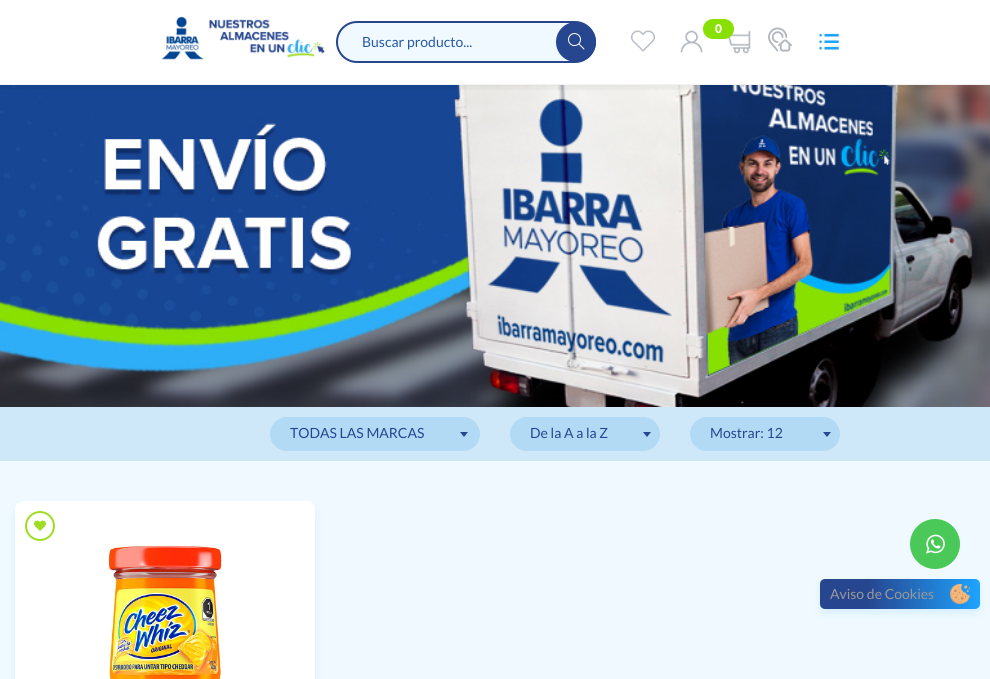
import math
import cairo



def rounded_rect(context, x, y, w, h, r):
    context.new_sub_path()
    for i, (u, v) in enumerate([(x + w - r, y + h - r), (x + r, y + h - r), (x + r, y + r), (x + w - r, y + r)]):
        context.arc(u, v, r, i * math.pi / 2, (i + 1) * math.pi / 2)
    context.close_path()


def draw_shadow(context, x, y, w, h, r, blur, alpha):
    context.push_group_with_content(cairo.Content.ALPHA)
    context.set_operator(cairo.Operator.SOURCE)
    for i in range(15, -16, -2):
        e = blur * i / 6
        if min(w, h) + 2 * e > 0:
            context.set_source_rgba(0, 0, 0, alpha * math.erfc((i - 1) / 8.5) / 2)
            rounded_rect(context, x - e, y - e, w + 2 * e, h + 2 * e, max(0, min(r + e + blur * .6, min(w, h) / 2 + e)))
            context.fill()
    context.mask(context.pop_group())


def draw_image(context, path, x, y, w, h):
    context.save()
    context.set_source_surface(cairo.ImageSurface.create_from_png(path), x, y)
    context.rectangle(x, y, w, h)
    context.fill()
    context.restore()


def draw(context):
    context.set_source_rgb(1, 1, 1)
    context.paint()
    draw_image(context, "images/8.png", 0, 85, 990, 322)
    context.save()
    context.rectangle(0, 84, 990, 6)
    context.clip()
    context.set_source_rgb(0, 0, 0)
    draw_shadow(context, 0, -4, 990, 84, 0, 8, 0.2)
    context.restore()
    draw_image(context, "images/1.png", 161, 16, 164, 44)
    draw_image(context, "images/2.png", 631, 30, 24, 22)
    draw_image(context, "images/3.png", 680, 30, 23, 23)
    draw_image(context, "images/4.png", 728, 30, 23, 24)
    context.set_source_rgb(136 / 255, 224 / 255, 0)
    rounded_rect(context, 703, 19, 31, 20, 10)
    context.fill()
    draw_image(context, "images/5.png", 768, 27, 24, 25)
    context.set_source_rgb(240 / 255, 249 / 255, 1)
    rounded_rect(context, 337, 22, 258, 40, 20)
    context.fill_preserve()
    context.set_source_rgb(39 / 255, 70 / 255, 144 / 255)
    context.stroke()
    context.arc(576, 42, 20, 0, 2 * math.pi)
    context.fill()
    draw_image(context, "images/6.png", 568, 33, 17, 17)
    draw_image(context, "images/7.png", 819, 33, 20, 17)
    context.set_source_rgb(207 / 255, 232 / 255, 249 / 255)
    context.rectangle(0, 407, 990, 54)
    context.fill()
    context.set_source_rgb(178 / 255, 218 / 255, 245 / 255)
    rounded_rect(context, 270, 417, 210, 34, 17)
    context.fill()
    context.set_source_rgb(39 / 255, 70 / 255, 144 / 255)
    context.new_path()
    context.move_to(460, 432)
    context.line_to(468, 432)
    context.line_to(464, 437)
    context.close_path()
    context.fill()
    context.set_source_rgb(178 / 255, 218 / 255, 245 / 255)
    rounded_rect(context, 510, 417, 150, 34, 17)
    context.fill()
    context.set_source_rgb(39 / 255, 70 / 255, 144 / 255)
    context.new_path()
    context.move_to(643, 432)
    context.line_to(651, 432)
    context.line_to(647, 437)
    context.close_path()
    context.fill()
    context.set_source_rgb(178 / 255, 218 / 255, 245 / 255)
    rounded_rect(context, 690, 417, 150, 34, 17)
    context.fill()
    context.set_source_rgb(39 / 255, 70 / 255, 144 / 255)
    context.new_path()
    context.move_to(823, 432)
    context.line_to(831, 432)
    context.line_to(827, 437)
    context.close_path()
    context.fill()
    context.set_source_rgb(240 / 255, 249 / 255, 1)
    context.rectangle(0, 461, 990, 218)
    context.fill()
    context.save()
    context.rectangle(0, 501, 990, 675)
    context.clip()
    context.set_source_rgb(213 / 255, 238 / 255, 1)
    draw_shadow(context, 15, 507, 300, 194, 8, 4.5, 1)
    context.restore()
    context.set_source_rgb(1, 1, 1)
    rounded_rect(context, 15, 501, 300, 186, 8)
    context.fill()
    context.arc(40, 526, 14, 0, 2 * math.pi)
    context.set_source_rgb(159 / 255, 221 / 255, 36 / 255)
    context.stroke()
    draw_image(context, "images/9.png", 34, 520, 12, 11)
    draw_image(context, "images/10.png", 108, 545, 115, 134)
    context.set_source_rgb(74 / 255, 201 / 255, 89 / 255)
    context.arc(935, 544, 25, 0, 2 * math.pi)
    context.fill()
    draw_image(context, "images/11.png", 926, 534, 19, 20)
    context.set_source_rgb(213 / 255, 238 / 255, 1)
    draw_shadow(context, 820, 583, 160, 30, 5, 4, 1)
    gradient = cairo.LinearGradient(820, 594, 980, 594)
    gradient.add_color_stop_rgba(0.3, 39 / 255, 70 / 255, 144 / 255, 1)
    gradient.add_color_stop_rgba(1, 29 / 255, 164 / 255, 1, 1)
    context.set_source(gradient)
    rounded_rect(context, 820, 579, 160, 30, 5)
    context.fill()
    draw_image(context, "images/12.png", 950, 584, 20, 20)
    context.select_font_face("Lato Black")
    context.set_font_size(12)
    context.set_source_rgb(1, 1, 1)
    context.move_to(715, 33)
    context.show_text("0")
    context.select_font_face("Lato")
    context.set_font_size(14)
    context.set_source_rgb(37 / 255, 88 / 255, 165 / 255)
    context.move_to(362, 47)
    context.show_text("Buscar producto...")
    context.set_source_rgb(39 / 255, 70 / 255, 144 / 255)
    context.move_to(290, 438)
    context.show_text("TODAS LAS MARCAS")
    context.move_to(530, 438)
    context.show_text("De la A a la Z")
    context.move_to(710, 438)
    context.show_text("Mostrar: 12")
    context.set_source_rgb(153 / 255, 153 / 255, 153 / 255)
    context.move_to(830, 599)
    context.show_text("Aviso de Cookies")


surface = cairo.ImageSurface(cairo.Format.RGB24, 990, 679)
context = cairo.Context(surface)
options = cairo.FontOptions()
options.set_hint_metrics(cairo.HintMetrics.OFF)
options.set_hint_style(cairo.HintStyle.NONE)
context.set_font_options(options)
context.set_miter_limit(4)
draw(context)
surface.write_to_png("out.png")
